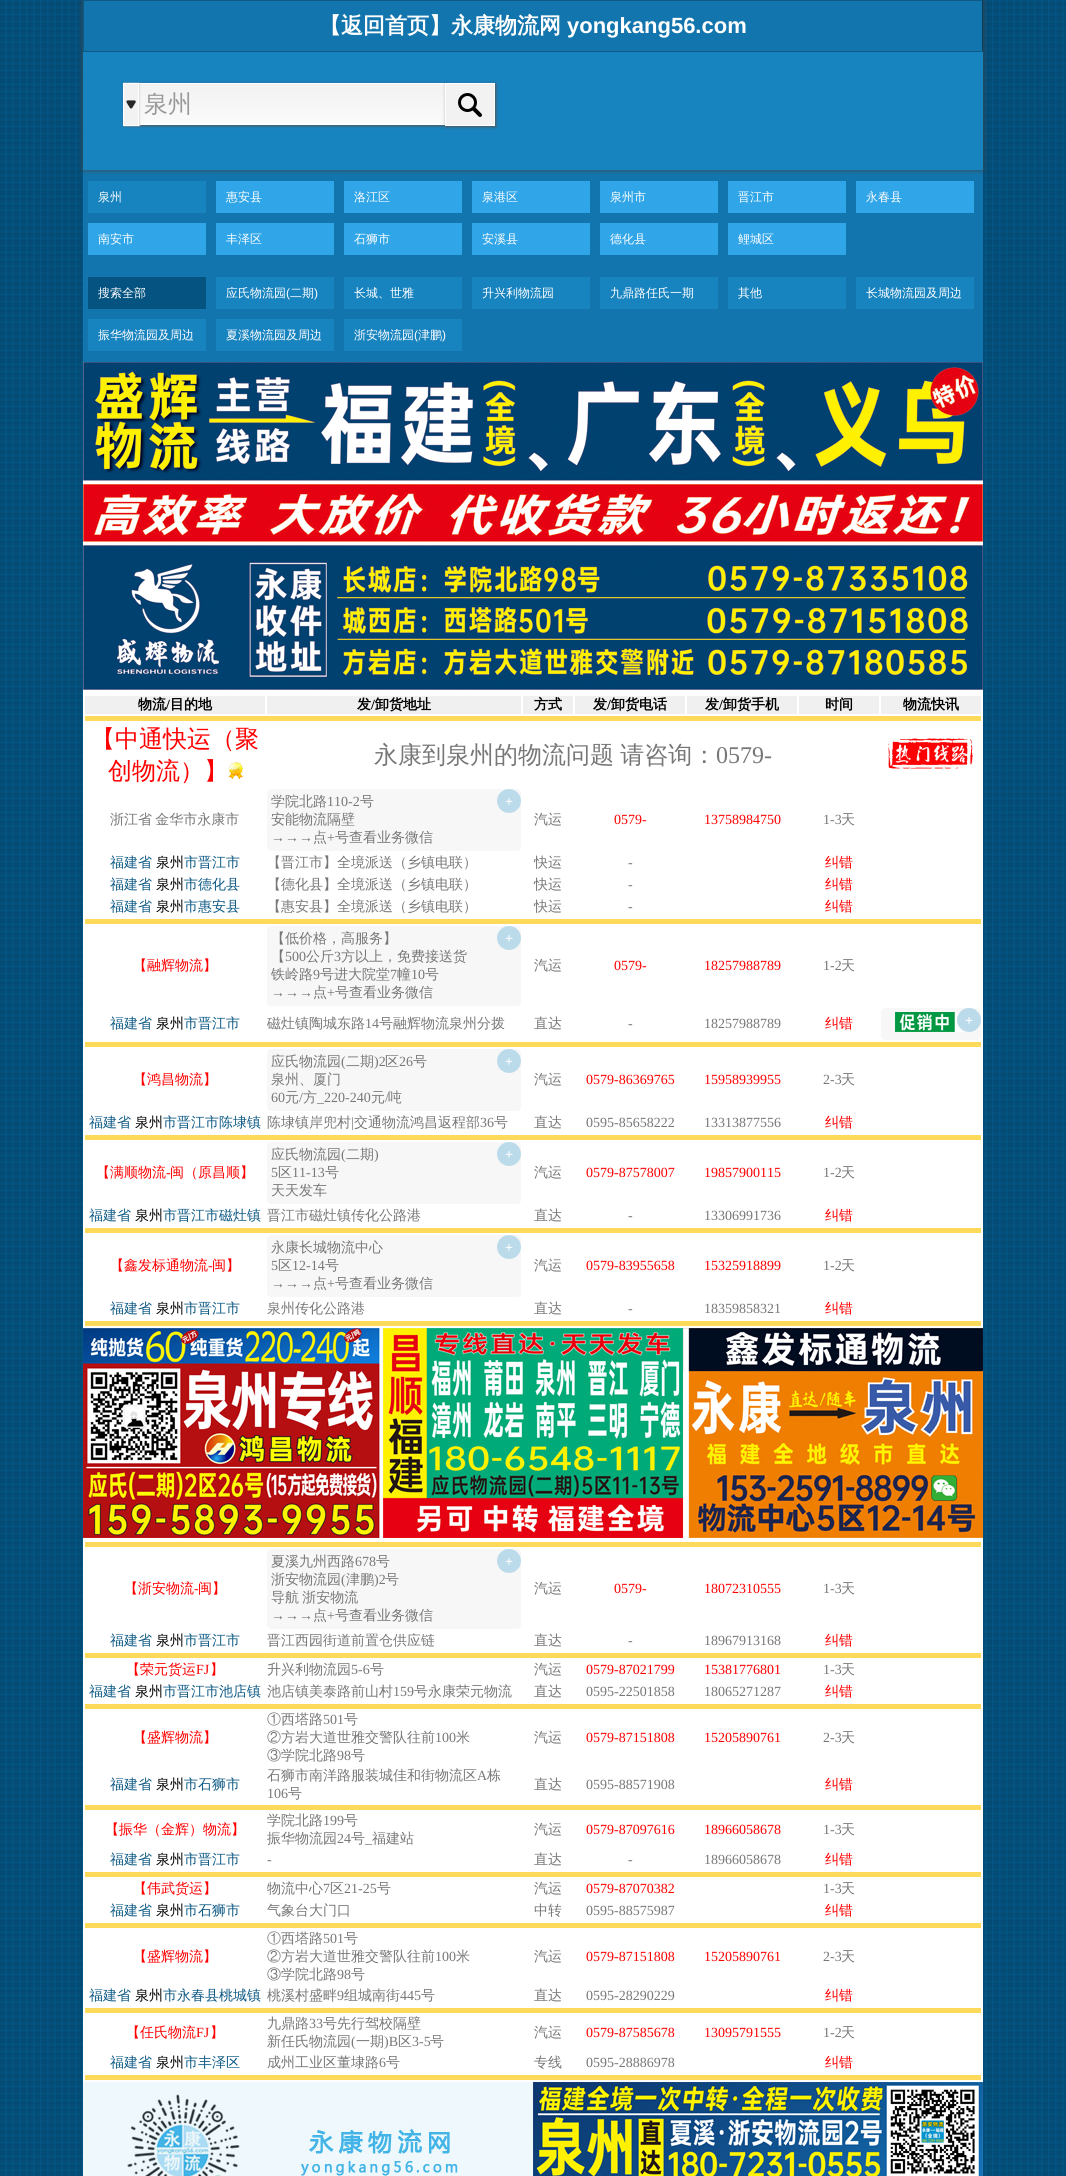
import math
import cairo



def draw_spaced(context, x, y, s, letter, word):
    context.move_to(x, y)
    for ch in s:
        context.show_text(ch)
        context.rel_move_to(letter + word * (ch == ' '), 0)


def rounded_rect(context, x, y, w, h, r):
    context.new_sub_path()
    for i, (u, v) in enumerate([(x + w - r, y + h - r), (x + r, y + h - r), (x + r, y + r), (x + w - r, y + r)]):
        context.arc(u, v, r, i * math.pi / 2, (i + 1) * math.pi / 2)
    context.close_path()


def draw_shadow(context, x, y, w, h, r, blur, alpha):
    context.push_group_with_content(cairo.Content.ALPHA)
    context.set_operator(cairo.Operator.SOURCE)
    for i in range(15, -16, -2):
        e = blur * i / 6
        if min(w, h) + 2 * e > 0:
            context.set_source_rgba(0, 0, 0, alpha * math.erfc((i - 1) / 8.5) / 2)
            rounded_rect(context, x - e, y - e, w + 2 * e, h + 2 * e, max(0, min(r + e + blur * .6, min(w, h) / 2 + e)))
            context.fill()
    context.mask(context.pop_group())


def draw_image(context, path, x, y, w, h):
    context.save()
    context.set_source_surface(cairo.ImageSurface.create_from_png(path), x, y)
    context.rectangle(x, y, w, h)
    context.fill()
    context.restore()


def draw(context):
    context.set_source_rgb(1, 1, 1)
    context.paint()
    draw_image(context, "images/1.png", 0, 0, 1066, 2176)
    context.set_source_rgb(18 / 255, 117 / 255, 173 / 255)
    context.rectangle(83, 170, 900, 192)
    context.fill()
    context.set_source_rgb(68 / 255, 68 / 255, 68 / 255)
    draw_shadow(context, 83, 0, 900, 170, 0, 2.5, 1)
    context.set_source_rgb(23 / 255, 131 / 255, 191 / 255)
    context.rectangle(83, 52, 900, 118)
    context.fill()
    context.set_source_rgb(18 / 255, 117 / 255, 173 / 255)
    context.rectangle(84, 1, 898, 50)
    context.fill()
    context.set_source_rgb(14 / 255, 90 / 255, 133 / 255)
    context.rectangle(83, 0, 900, 1)
    context.fill()
    context.set_source_rgb(9 / 255, 60 / 255, 89 / 255)
    context.rectangle(982, 0, 1, 52)
    context.fill()
    context.set_source_rgb(14 / 255, 90 / 255, 133 / 255)
    context.rectangle(83, 51, 900, 1)
    context.fill()
    context.rectangle(83, 0, 1, 52)
    context.fill()
    context.set_source_rgb(85 / 255, 85 / 255, 85 / 255)
    draw_shadow(context, 124, 84, 322, 42, 0, 1.5, 1)
    gradient = cairo.LinearGradient(124, 84, 124, 124)
    gradient.add_color_stop_rgba(0, 242 / 255, 242 / 255, 242 / 255, 1)
    gradient.add_color_stop_rgba(1, 250 / 255, 250 / 255, 250 / 255, 1)
    context.set_source(gradient)
    context.rectangle(139, 84, 305, 40)
    context.fill()
    context.rectangle(123.5, 83.5, 321, 41)
    context.set_source_rgb(1, 1, 1)
    context.set_line_width(1)
    context.stroke()
    context.set_source_rgb(221 / 255, 221 / 255, 221 / 255)
    draw_shadow(context, 124, 83, 16, 43, 0, 0.5, 1)
    context.set_source_rgb(242 / 255, 242 / 255, 242 / 255)
    context.rectangle(124, 84, 14, 41)
    context.fill()
    draw_image(context, "images/2.png", 126, 100, 10, 9)
    context.rectangle(123.5, 83.5, 15, 42)
    context.set_source_rgb(1, 1, 1)
    context.stroke()
    context.set_source_rgb(85 / 255, 85 / 255, 85 / 255)
    draw_shadow(context, 446, 84, 50, 43, 0, 1.5, 1)
    context.set_source_rgb(242 / 255, 242 / 255, 242 / 255)
    context.rectangle(446, 84, 48, 41)
    context.fill()
    draw_image(context, "images/3.png", 458, 93, 24, 24)
    context.rectangle(445.5, 83.5, 49, 42)
    context.set_source_rgb(1, 1, 1)
    context.stroke()
    context.set_source_rgb(23 / 255, 131 / 255, 191 / 255)
    context.rectangle(88, 181, 118, 32)
    context.fill()
    context.set_source_rgb(48 / 255, 165 / 255, 232 / 255)
    context.rectangle(216, 181, 118, 32)
    context.fill()
    context.rectangle(344, 181, 118, 32)
    context.fill()
    context.rectangle(472, 181, 118, 32)
    context.fill()
    context.rectangle(600, 181, 118, 32)
    context.fill()
    context.rectangle(728, 181, 118, 32)
    context.fill()
    context.rectangle(856, 181, 118, 32)
    context.fill()
    context.rectangle(88, 223, 118, 32)
    context.fill()
    context.rectangle(216, 223, 118, 32)
    context.fill()
    context.rectangle(344, 223, 118, 32)
    context.fill()
    context.rectangle(472, 223, 118, 32)
    context.fill()
    context.rectangle(600, 223, 118, 32)
    context.fill()
    context.rectangle(728, 223, 118, 32)
    context.fill()
    context.set_source_rgb(4 / 255, 83 / 255, 129 / 255)
    context.rectangle(88, 277, 118, 32)
    context.fill()
    context.set_source_rgb(23 / 255, 131 / 255, 191 / 255)
    context.rectangle(216, 277, 118, 32)
    context.fill()
    context.rectangle(344, 277, 118, 32)
    context.fill()
    context.rectangle(472, 277, 118, 32)
    context.fill()
    context.rectangle(600, 277, 118, 32)
    context.fill()
    context.rectangle(728, 277, 118, 32)
    context.fill()
    context.rectangle(856, 277, 118, 32)
    context.fill()
    context.rectangle(88, 319, 118, 32)
    context.fill()
    context.rectangle(216, 319, 118, 32)
    context.fill()
    context.rectangle(344, 319, 118, 32)
    context.fill()
    context.set_source_rgb(1, 1, 1)
    context.rectangle(83, 690, 900, 638)
    context.fill()
    draw_image(context, "images/4.png", 83, 362, 900, 328)
    context.set_source_rgb(240 / 255, 240 / 255, 240 / 255)
    context.rectangle(85, 696, 180, 18)
    context.fill()
    context.rectangle(267, 696, 254, 18)
    context.fill()
    context.rectangle(523, 696, 50, 18)
    context.fill()
    context.rectangle(575, 696, 110, 18)
    context.fill()
    context.rectangle(687, 696, 110, 18)
    context.fill()
    context.rectangle(799, 696, 80, 18)
    context.fill()
    context.rectangle(881, 696, 100, 18)
    context.fill()
    context.set_source_rgb(1, 218 / 255, 90 / 255)
    context.rectangle(85, 716, 896, 5)
    context.fill()
    draw_image(context, "images/5.png", 228, 762, 15, 17)
    draw_image(context, "images/6.png", 888, 738, 85, 31)
    context.set_source_rgb(247 / 255, 247 / 255, 247 / 255)
    rounded_rect(context, 267, 789, 254, 62, 4)
    context.fill()
    context.set_source_rgb(188 / 255, 219 / 255, 234 / 255)
    context.arc(509, 801, 12, 0, 2 * math.pi)
    context.fill()
    context.set_source_rgb(1, 218 / 255, 90 / 255)
    context.rectangle(85, 919, 896, 5)
    context.fill()
    context.set_source_rgb(247 / 255, 247 / 255, 247 / 255)
    rounded_rect(context, 267, 926, 254, 80, 4)
    context.fill()
    context.set_source_rgb(188 / 255, 219 / 255, 234 / 255)
    context.arc(509, 938, 12, 0, 2 * math.pi)
    context.fill()
    context.set_source_rgb(247 / 255, 247 / 255, 247 / 255)
    rounded_rect(context, 881, 1008, 100, 32, 4)
    context.fill()
    draw_image(context, "images/7.png", 895, 1012, 72, 20)
    context.set_source_rgb(188 / 255, 219 / 255, 234 / 255)
    context.arc(969, 1020, 12, 0, 2 * math.pi)
    context.fill()
    context.set_source_rgb(1, 218 / 255, 90 / 255)
    context.rectangle(85, 1042, 896, 5)
    context.fill()
    context.set_source_rgb(247 / 255, 247 / 255, 247 / 255)
    rounded_rect(context, 267, 1049, 254, 62, 4)
    context.fill()
    context.set_source_rgb(188 / 255, 219 / 255, 234 / 255)
    context.arc(509, 1061, 12, 0, 2 * math.pi)
    context.fill()
    context.set_source_rgb(1, 218 / 255, 90 / 255)
    context.rectangle(85, 1135, 896, 5)
    context.fill()
    context.set_source_rgb(247 / 255, 247 / 255, 247 / 255)
    rounded_rect(context, 267, 1142, 254, 62, 4)
    context.fill()
    context.set_source_rgb(188 / 255, 219 / 255, 234 / 255)
    context.arc(509, 1154, 12, 0, 2 * math.pi)
    context.fill()
    context.set_source_rgb(1, 218 / 255, 90 / 255)
    context.rectangle(85, 1228, 896, 5)
    context.fill()
    context.set_source_rgb(247 / 255, 247 / 255, 247 / 255)
    rounded_rect(context, 267, 1235, 254, 62, 4)
    context.fill()
    context.set_source_rgb(188 / 255, 219 / 255, 234 / 255)
    context.arc(509, 1247, 12, 0, 2 * math.pi)
    context.fill()
    context.set_source_rgb(1, 218 / 255, 90 / 255)
    context.rectangle(85, 1321, 896, 5)
    context.fill()
    draw_image(context, "images/8.png", 83, 1328, 300, 210)
    draw_image(context, "images/9.png", 383, 1328, 300, 210)
    draw_image(context, "images/10.png", 683, 1328, 300, 210)
    context.set_source_rgb(1, 1, 1)
    context.rectangle(83, 1538, 900, 544)
    context.fill()
    context.set_source_rgb(1, 218 / 255, 90 / 255)
    context.rectangle(85, 1542, 896, 5)
    context.fill()
    context.set_source_rgb(247 / 255, 247 / 255, 247 / 255)
    rounded_rect(context, 267, 1549, 254, 80, 4)
    context.fill()
    context.set_source_rgb(188 / 255, 219 / 255, 234 / 255)
    context.arc(509, 1561, 12, 0, 2 * math.pi)
    context.fill()
    context.set_source_rgb(1, 218 / 255, 90 / 255)
    context.rectangle(85, 1653, 896, 5)
    context.fill()
    context.rectangle(85, 1704, 896, 5)
    context.fill()
    context.rectangle(85, 1805, 896, 5)
    context.fill()
    context.rectangle(85, 1872, 896, 5)
    context.fill()
    context.rectangle(85, 1923, 896, 5)
    context.fill()
    context.rectangle(85, 2008, 896, 5)
    context.fill()
    context.rectangle(85, 2075, 896, 5)
    context.fill()
    draw_image(context, "images/11.png", 83, 2082, 450, 94)
    draw_image(context, "images/12.png", 533, 2082, 450, 94)
    context.select_font_face("WenQuanYi Zen Hei", cairo.FontSlant.NORMAL, cairo.FontWeight.BOLD)
    context.set_font_size(22)
    context.set_source_rgb(1, 1, 1)
    context.move_to(319, 33)
    context.show_text("【返回首页】永康物流网")
    context.select_font_face("Liberation Sans", cairo.FontSlant.NORMAL, cairo.FontWeight.BOLD)
    context.move_to(567, 33)
    context.show_text("yongkang56.com")
    context.select_font_face("WenQuanYi Zen Hei Medium")
    context.set_font_size(24)
    context.set_source_rgb(153 / 255, 153 / 255, 153 / 255)
    context.move_to(144, 112)
    context.show_text("泉州")
    context.set_font_size(12)
    context.set_source_rgb(1, 1, 1)
    context.move_to(98, 201)
    context.show_text("泉州")
    context.move_to(226, 201)
    context.show_text("惠安县")
    context.move_to(354, 201)
    context.show_text("洛江区")
    context.move_to(482, 201)
    context.show_text("泉港区")
    context.move_to(610, 201)
    context.show_text("泉州市")
    context.move_to(738, 201)
    context.show_text("晋江市")
    context.move_to(866, 201)
    context.show_text("永春县")
    context.move_to(98, 243)
    context.show_text("南安市")
    context.move_to(226, 243)
    context.show_text("丰泽区")
    context.move_to(354, 243)
    context.show_text("石狮市")
    context.move_to(482, 243)
    context.show_text("安溪县")
    context.move_to(610, 243)
    context.show_text("德化县")
    context.move_to(738, 243)
    context.show_text("鲤城区")
    context.move_to(98, 297)
    context.show_text("搜索全部")
    context.move_to(226, 297)
    context.show_text("应氏物流园")
    context.select_font_face("Liberation Sans")
    context.move_to(286, 297)
    context.show_text("(")
    context.select_font_face("WenQuanYi Zen Hei Medium")
    context.move_to(290, 297)
    context.show_text("二期")
    context.select_font_face("Liberation Sans")
    context.move_to(314, 297)
    context.show_text(")")
    context.select_font_face("WenQuanYi Zen Hei Medium")
    context.move_to(354, 297)
    context.show_text("长城、世雅")
    context.move_to(482, 297)
    context.show_text("升兴利物流园")
    context.move_to(610, 297)
    context.show_text("九鼎路任氏一期")
    context.move_to(738, 297)
    context.show_text("其他")
    context.move_to(866, 297)
    context.show_text("长城物流园及周边")
    context.move_to(98, 339)
    context.show_text("振华物流园及周边")
    context.move_to(226, 339)
    context.show_text("夏溪物流园及周边")
    context.move_to(354, 339)
    context.show_text("浙安物流园")
    context.select_font_face("Liberation Sans")
    context.move_to(414, 339)
    context.show_text("(")
    context.select_font_face("WenQuanYi Zen Hei Medium")
    context.move_to(418, 339)
    context.show_text("津鹏")
    context.select_font_face("Liberation Sans")
    context.move_to(442, 339)
    context.show_text(")")
    context.select_font_face("WenQuanYi Zen Hei", cairo.FontSlant.NORMAL, cairo.FontWeight.BOLD)
    context.set_font_size(14)
    context.set_source_rgb(0, 0, 0)
    context.move_to(138, 709)
    context.show_text("物流")
    context.select_font_face("Liberation Serif", cairo.FontSlant.NORMAL, cairo.FontWeight.BOLD)
    context.move_to(166, 709)
    context.show_text("/")
    context.select_font_face("WenQuanYi Zen Hei", cairo.FontSlant.NORMAL, cairo.FontWeight.BOLD)
    context.move_to(170, 709)
    context.show_text("目的地")
    context.move_to(357, 709)
    context.show_text("发")
    context.select_font_face("Liberation Serif", cairo.FontSlant.NORMAL, cairo.FontWeight.BOLD)
    context.move_to(371, 709)
    context.show_text("/")
    context.select_font_face("WenQuanYi Zen Hei", cairo.FontSlant.NORMAL, cairo.FontWeight.BOLD)
    context.move_to(375, 709)
    context.show_text("卸货地址")
    context.move_to(534, 709)
    context.show_text("方式")
    context.move_to(593, 709)
    context.show_text("发")
    context.select_font_face("Liberation Serif", cairo.FontSlant.NORMAL, cairo.FontWeight.BOLD)
    context.move_to(607, 709)
    context.show_text("/")
    context.select_font_face("WenQuanYi Zen Hei", cairo.FontSlant.NORMAL, cairo.FontWeight.BOLD)
    context.move_to(611, 709)
    context.show_text("卸货电话")
    context.move_to(705, 709)
    context.show_text("发")
    context.select_font_face("Liberation Serif", cairo.FontSlant.NORMAL, cairo.FontWeight.BOLD)
    context.move_to(719, 709)
    context.show_text("/")
    context.select_font_face("WenQuanYi Zen Hei", cairo.FontSlant.NORMAL, cairo.FontWeight.BOLD)
    context.move_to(723, 709)
    context.show_text("卸货手机")
    context.move_to(825, 709)
    context.show_text("时间")
    context.move_to(903, 709)
    context.show_text("物流快讯")
    context.select_font_face("WenQuanYi Zen Hei Medium")
    context.set_font_size(24)
    context.set_source_rgb(1, 0, 0)
    context.move_to(91, 747)
    context.show_text("【中通快运（聚")
    context.move_to(108, 779)
    context.show_text("创物流）】")
    context.set_source_rgb(119 / 255, 119 / 255, 119 / 255)
    draw_spaced(context, 374, 763, "永康到泉州的物流问题 请咨询：", 0, -1)
    context.select_font_face("Liberation Serif")
    context.move_to(716, 763)
    context.show_text("0579-")
    context.select_font_face("WenQuanYi Zen Hei Medium")
    context.set_font_size(14)
    draw_spaced(context, 110, 824, "浙江省 金华市永康市", 0, -1)
    context.move_to(271, 806)
    context.show_text("学院北路")
    context.select_font_face("Liberation Serif")
    context.move_to(327, 806)
    context.show_text("110-2")
    context.select_font_face("WenQuanYi Zen Hei Medium")
    context.move_to(360, 806)
    context.show_text("号")
    context.select_font_face("Liberation Serif", cairo.FontSlant.NORMAL, cairo.FontWeight.BOLD)
    context.set_source_rgb(1, 1, 1)
    context.move_to(505, 806)
    context.show_text("+")
    context.select_font_face("WenQuanYi Zen Hei Medium")
    context.set_source_rgb(119 / 255, 119 / 255, 119 / 255)
    context.move_to(271, 824)
    context.show_text("安能物流隔壁")
    context.select_font_face("Liberation Serif")
    context.move_to(271, 842)
    context.show_text("→→→")
    context.select_font_face("WenQuanYi Zen Hei Medium")
    context.move_to(313, 842)
    context.show_text("点")
    context.select_font_face("Liberation Serif")
    context.move_to(327, 842)
    context.show_text("+")
    context.select_font_face("WenQuanYi Zen Hei Medium")
    context.move_to(335, 842)
    context.show_text("号查看业务微信")
    context.move_to(534, 824)
    context.show_text("汽运")
    context.select_font_face("Liberation Serif")
    context.set_source_rgb(1, 0, 0)
    context.move_to(614, 824)
    context.show_text("0579-")
    context.move_to(704, 824)
    context.show_text("13758984750")
    context.set_source_rgb(119 / 255, 119 / 255, 119 / 255)
    context.move_to(823, 824)
    context.show_text("1-3")
    context.select_font_face("WenQuanYi Zen Hei Medium")
    context.move_to(841, 824)
    context.show_text("天")
    context.set_source_rgb(14 / 255, 90 / 255, 133 / 255)
    context.move_to(110, 867)
    context.show_text("福建省")
    context.set_source_rgb(0, 0, 0)
    context.move_to(156, 867)
    context.show_text("泉州")
    context.set_source_rgb(14 / 255, 90 / 255, 133 / 255)
    context.move_to(184, 867)
    context.show_text("市晋江市")
    context.set_source_rgb(119 / 255, 119 / 255, 119 / 255)
    context.move_to(267, 867)
    context.show_text("【晋江市】全境派送（乡镇电联）")
    context.move_to(534, 867)
    context.show_text("快运")
    context.select_font_face("Liberation Serif")
    context.move_to(628, 867)
    context.show_text("-")
    context.select_font_face("WenQuanYi Zen Hei Medium")
    context.set_source_rgb(1, 0, 0)
    context.move_to(825, 867)
    context.show_text("纠错")
    context.set_source_rgb(14 / 255, 90 / 255, 133 / 255)
    context.move_to(110, 889)
    context.show_text("福建省")
    context.set_source_rgb(0, 0, 0)
    context.move_to(156, 889)
    context.show_text("泉州")
    context.set_source_rgb(14 / 255, 90 / 255, 133 / 255)
    context.move_to(184, 889)
    context.show_text("市德化县")
    context.set_source_rgb(119 / 255, 119 / 255, 119 / 255)
    context.move_to(267, 889)
    context.show_text("【德化县】全境派送（乡镇电联）")
    context.move_to(534, 889)
    context.show_text("快运")
    context.select_font_face("Liberation Serif")
    context.move_to(628, 889)
    context.show_text("-")
    context.select_font_face("WenQuanYi Zen Hei Medium")
    context.set_source_rgb(1, 0, 0)
    context.move_to(825, 889)
    context.show_text("纠错")
    context.set_source_rgb(14 / 255, 90 / 255, 133 / 255)
    context.move_to(110, 911)
    context.show_text("福建省")
    context.set_source_rgb(0, 0, 0)
    context.move_to(156, 911)
    context.show_text("泉州")
    context.set_source_rgb(14 / 255, 90 / 255, 133 / 255)
    context.move_to(184, 911)
    context.show_text("市惠安县")
    context.set_source_rgb(119 / 255, 119 / 255, 119 / 255)
    context.move_to(267, 911)
    context.show_text("【惠安县】全境派送（乡镇电联）")
    context.move_to(534, 911)
    context.show_text("快运")
    context.select_font_face("Liberation Serif")
    context.move_to(628, 911)
    context.show_text("-")
    context.select_font_face("WenQuanYi Zen Hei Medium")
    context.set_source_rgb(1, 0, 0)
    context.move_to(825, 911)
    context.show_text("纠错")
    context.move_to(133, 970)
    context.show_text("【融辉物流】")
    context.set_source_rgb(119 / 255, 119 / 255, 119 / 255)
    context.move_to(271, 943)
    context.show_text("【低价格，高服务】")
    context.select_font_face("Liberation Serif", cairo.FontSlant.NORMAL, cairo.FontWeight.BOLD)
    context.set_source_rgb(1, 1, 1)
    context.move_to(505, 943)
    context.show_text("+")
    context.select_font_face("WenQuanYi Zen Hei Medium")
    context.set_source_rgb(119 / 255, 119 / 255, 119 / 255)
    context.move_to(271, 961)
    context.show_text("【")
    context.select_font_face("Liberation Serif")
    context.move_to(285, 961)
    context.show_text("500")
    context.select_font_face("WenQuanYi Zen Hei Medium")
    context.move_to(306, 961)
    context.show_text("公斤")
    context.select_font_face("Liberation Serif")
    context.move_to(334, 961)
    context.show_text("3")
    context.select_font_face("WenQuanYi Zen Hei Medium")
    context.move_to(341, 961)
    context.show_text("方以上，免费接送货")
    context.move_to(271, 979)
    context.show_text("铁岭路")
    context.select_font_face("Liberation Serif")
    context.move_to(313, 979)
    context.show_text("9")
    context.select_font_face("WenQuanYi Zen Hei Medium")
    context.move_to(320, 979)
    context.show_text("号进大院堂")
    context.select_font_face("Liberation Serif")
    context.move_to(390, 979)
    context.show_text("7")
    context.select_font_face("WenQuanYi Zen Hei Medium")
    context.move_to(397, 979)
    context.show_text("幢")
    context.select_font_face("Liberation Serif")
    context.move_to(411, 979)
    context.show_text("10")
    context.select_font_face("WenQuanYi Zen Hei Medium")
    context.move_to(425, 979)
    context.show_text("号")
    context.select_font_face("Liberation Serif")
    context.move_to(271, 997)
    context.show_text("→→→")
    context.select_font_face("WenQuanYi Zen Hei Medium")
    context.move_to(313, 997)
    context.show_text("点")
    context.select_font_face("Liberation Serif")
    context.move_to(327, 997)
    context.show_text("+")
    context.select_font_face("WenQuanYi Zen Hei Medium")
    context.move_to(335, 997)
    context.show_text("号查看业务微信")
    context.move_to(534, 970)
    context.show_text("汽运")
    context.select_font_face("Liberation Serif")
    context.set_source_rgb(1, 0, 0)
    context.move_to(614, 970)
    context.show_text("0579-")
    context.move_to(704, 970)
    context.show_text("18257988789")
    context.set_source_rgb(119 / 255, 119 / 255, 119 / 255)
    context.move_to(823, 970)
    context.show_text("1-2")
    context.select_font_face("WenQuanYi Zen Hei Medium")
    context.move_to(841, 970)
    context.show_text("天")
    context.set_source_rgb(14 / 255, 90 / 255, 133 / 255)
    context.move_to(110, 1028)
    context.show_text("福建省")
    context.set_source_rgb(0, 0, 0)
    context.move_to(156, 1028)
    context.show_text("泉州")
    context.set_source_rgb(14 / 255, 90 / 255, 133 / 255)
    context.move_to(184, 1028)
    context.show_text("市晋江市")
    context.set_source_rgb(119 / 255, 119 / 255, 119 / 255)
    context.move_to(267, 1028)
    context.show_text("磁灶镇陶城东路")
    context.select_font_face("Liberation Serif")
    context.move_to(365, 1028)
    context.show_text("14")
    context.select_font_face("WenQuanYi Zen Hei Medium")
    context.move_to(379, 1028)
    context.show_text("号融辉物流泉州分拨")
    context.move_to(534, 1028)
    context.show_text("直达")
    context.select_font_face("Liberation Serif")
    context.move_to(628, 1028)
    context.show_text("-")
    context.move_to(704, 1028)
    context.show_text("18257988789")
    context.select_font_face("WenQuanYi Zen Hei Medium")
    context.set_source_rgb(1, 0, 0)
    context.move_to(825, 1028)
    context.show_text("纠错")
    context.select_font_face("Liberation Serif", cairo.FontSlant.NORMAL, cairo.FontWeight.BOLD)
    context.set_source_rgb(1, 1, 1)
    context.move_to(965, 1025)
    context.show_text("+")
    context.select_font_face("WenQuanYi Zen Hei Medium")
    context.set_source_rgb(1, 0, 0)
    context.move_to(133, 1084)
    context.show_text("【鸿昌物流】")
    context.set_source_rgb(119 / 255, 119 / 255, 119 / 255)
    context.move_to(271, 1066)
    context.show_text("应氏物流园")
    context.select_font_face("Liberation Serif")
    context.move_to(341, 1066)
    context.show_text("(")
    context.select_font_face("WenQuanYi Zen Hei Medium")
    context.move_to(346, 1066)
    context.show_text("二期")
    context.select_font_face("Liberation Serif")
    context.move_to(374, 1066)
    context.show_text(")2")
    context.select_font_face("WenQuanYi Zen Hei Medium")
    context.move_to(385, 1066)
    context.show_text("区")
    context.select_font_face("Liberation Serif")
    context.move_to(399, 1066)
    context.show_text("26")
    context.select_font_face("WenQuanYi Zen Hei Medium")
    context.move_to(413, 1066)
    context.show_text("号")
    context.select_font_face("Liberation Serif", cairo.FontSlant.NORMAL, cairo.FontWeight.BOLD)
    context.set_source_rgb(1, 1, 1)
    context.move_to(505, 1066)
    context.show_text("+")
    context.select_font_face("WenQuanYi Zen Hei Medium")
    context.set_source_rgb(119 / 255, 119 / 255, 119 / 255)
    context.move_to(271, 1084)
    context.show_text("泉州、厦门")
    context.select_font_face("Liberation Serif")
    context.move_to(271, 1102)
    context.show_text("60")
    context.select_font_face("WenQuanYi Zen Hei Medium")
    context.move_to(285, 1102)
    context.show_text("元")
    context.select_font_face("Liberation Serif")
    context.move_to(299, 1102)
    context.show_text("/")
    context.select_font_face("WenQuanYi Zen Hei Medium")
    context.move_to(303, 1102)
    context.show_text("方")
    context.select_font_face("Liberation Serif")
    context.move_to(317, 1102)
    context.show_text("_220-240")
    context.select_font_face("WenQuanYi Zen Hei Medium")
    context.move_to(371, 1102)
    context.show_text("元")
    context.select_font_face("Liberation Serif")
    context.move_to(385, 1102)
    context.show_text("/")
    context.select_font_face("WenQuanYi Zen Hei Medium")
    context.move_to(388, 1102)
    context.show_text("吨")
    context.move_to(534, 1084)
    context.show_text("汽运")
    context.select_font_face("Liberation Serif")
    context.set_source_rgb(1, 0, 0)
    context.move_to(586, 1084)
    context.show_text("0579-86369765")
    context.move_to(704, 1084)
    context.show_text("15958939955")
    context.set_source_rgb(119 / 255, 119 / 255, 119 / 255)
    context.move_to(823, 1084)
    context.show_text("2-3")
    context.select_font_face("WenQuanYi Zen Hei Medium")
    context.move_to(841, 1084)
    context.show_text("天")
    context.set_source_rgb(14 / 255, 90 / 255, 133 / 255)
    context.move_to(89, 1127)
    context.show_text("福建省")
    context.set_source_rgb(0, 0, 0)
    context.move_to(135, 1127)
    context.show_text("泉州")
    context.set_source_rgb(14 / 255, 90 / 255, 133 / 255)
    context.move_to(163, 1127)
    context.show_text("市晋江市陈埭镇")
    context.set_source_rgb(119 / 255, 119 / 255, 119 / 255)
    context.move_to(267, 1127)
    context.show_text("陈埭镇岸兜村")
    context.select_font_face("Liberation Serif")
    context.move_to(351, 1127)
    context.show_text("|")
    context.select_font_face("WenQuanYi Zen Hei Medium")
    context.move_to(354, 1127)
    context.show_text("交通物流鸿昌返程部")
    context.select_font_face("Liberation Serif")
    context.move_to(480, 1127)
    context.show_text("36")
    context.select_font_face("WenQuanYi Zen Hei Medium")
    context.move_to(494, 1127)
    context.show_text("号")
    context.move_to(534, 1127)
    context.show_text("直达")
    context.select_font_face("Liberation Serif")
    context.move_to(586, 1127)
    context.show_text("0595-85658222")
    context.move_to(704, 1127)
    context.show_text("13313877556")
    context.select_font_face("WenQuanYi Zen Hei Medium")
    context.set_source_rgb(1, 0, 0)
    context.move_to(825, 1127)
    context.show_text("纠错")
    context.move_to(96, 1177)
    context.show_text("【满顺物流")
    context.select_font_face("Liberation Serif")
    context.move_to(166, 1177)
    context.show_text("-")
    context.select_font_face("WenQuanYi Zen Hei Medium")
    context.move_to(170, 1177)
    context.show_text("闽（原昌顺】")
    context.set_source_rgb(119 / 255, 119 / 255, 119 / 255)
    context.move_to(271, 1159)
    context.show_text("应氏物流园")
    context.select_font_face("Liberation Serif")
    context.move_to(341, 1159)
    context.show_text("(")
    context.select_font_face("WenQuanYi Zen Hei Medium")
    context.move_to(346, 1159)
    context.show_text("二期")
    context.select_font_face("Liberation Serif")
    context.move_to(374, 1159)
    context.show_text(")")
    context.select_font_face("Liberation Serif", cairo.FontSlant.NORMAL, cairo.FontWeight.BOLD)
    context.set_source_rgb(1, 1, 1)
    context.move_to(505, 1159)
    context.show_text("+")
    context.select_font_face("Liberation Serif")
    context.set_source_rgb(119 / 255, 119 / 255, 119 / 255)
    context.move_to(271, 1177)
    context.show_text("5")
    context.select_font_face("WenQuanYi Zen Hei Medium")
    context.move_to(278, 1177)
    context.show_text("区")
    context.select_font_face("Liberation Serif")
    context.move_to(292, 1177)
    context.show_text("11-13")
    context.select_font_face("WenQuanYi Zen Hei Medium")
    context.move_to(325, 1177)
    context.show_text("号")
    context.move_to(271, 1195)
    context.show_text("天天发车")
    context.move_to(534, 1177)
    context.show_text("汽运")
    context.select_font_face("Liberation Serif")
    context.set_source_rgb(1, 0, 0)
    context.move_to(586, 1177)
    context.show_text("0579-87578007")
    context.move_to(704, 1177)
    context.show_text("19857900115")
    context.set_source_rgb(119 / 255, 119 / 255, 119 / 255)
    context.move_to(823, 1177)
    context.show_text("1-2")
    context.select_font_face("WenQuanYi Zen Hei Medium")
    context.move_to(841, 1177)
    context.show_text("天")
    context.set_source_rgb(14 / 255, 90 / 255, 133 / 255)
    context.move_to(89, 1220)
    context.show_text("福建省")
    context.set_source_rgb(0, 0, 0)
    context.move_to(135, 1220)
    context.show_text("泉州")
    context.set_source_rgb(14 / 255, 90 / 255, 133 / 255)
    context.move_to(163, 1220)
    context.show_text("市晋江市磁灶镇")
    context.set_source_rgb(119 / 255, 119 / 255, 119 / 255)
    context.move_to(267, 1220)
    context.show_text("晋江市磁灶镇传化公路港")
    context.move_to(534, 1220)
    context.show_text("直达")
    context.select_font_face("Liberation Serif")
    context.move_to(628, 1220)
    context.show_text("-")
    context.move_to(704, 1220)
    context.show_text("13306991736")
    context.select_font_face("WenQuanYi Zen Hei Medium")
    context.set_source_rgb(1, 0, 0)
    context.move_to(825, 1220)
    context.show_text("纠错")
    context.move_to(110, 1270)
    context.show_text("【鑫发标通物流")
    context.select_font_face("Liberation Serif")
    context.move_to(208, 1270)
    context.show_text("-")
    context.select_font_face("WenQuanYi Zen Hei Medium")
    context.move_to(212, 1270)
    context.show_text("闽】")
    context.set_source_rgb(119 / 255, 119 / 255, 119 / 255)
    context.move_to(271, 1252)
    context.show_text("永康长城物流中心")
    context.select_font_face("Liberation Serif", cairo.FontSlant.NORMAL, cairo.FontWeight.BOLD)
    context.set_source_rgb(1, 1, 1)
    context.move_to(505, 1252)
    context.show_text("+")
    context.select_font_face("Liberation Serif")
    context.set_source_rgb(119 / 255, 119 / 255, 119 / 255)
    context.move_to(271, 1270)
    context.show_text("5")
    context.select_font_face("WenQuanYi Zen Hei Medium")
    context.move_to(278, 1270)
    context.show_text("区")
    context.select_font_face("Liberation Serif")
    context.move_to(292, 1270)
    context.show_text("12-14")
    context.select_font_face("WenQuanYi Zen Hei Medium")
    context.move_to(325, 1270)
    context.show_text("号")
    context.select_font_face("Liberation Serif")
    context.move_to(271, 1288)
    context.show_text("→→→")
    context.select_font_face("WenQuanYi Zen Hei Medium")
    context.move_to(313, 1288)
    context.show_text("点")
    context.select_font_face("Liberation Serif")
    context.move_to(327, 1288)
    context.show_text("+")
    context.select_font_face("WenQuanYi Zen Hei Medium")
    context.move_to(335, 1288)
    context.show_text("号查看业务微信")
    context.move_to(534, 1270)
    context.show_text("汽运")
    context.select_font_face("Liberation Serif")
    context.set_source_rgb(1, 0, 0)
    context.move_to(586, 1270)
    context.show_text("0579-83955658")
    context.move_to(704, 1270)
    context.show_text("15325918899")
    context.set_source_rgb(119 / 255, 119 / 255, 119 / 255)
    context.move_to(823, 1270)
    context.show_text("1-2")
    context.select_font_face("WenQuanYi Zen Hei Medium")
    context.move_to(841, 1270)
    context.show_text("天")
    context.set_source_rgb(14 / 255, 90 / 255, 133 / 255)
    context.move_to(110, 1313)
    context.show_text("福建省")
    context.set_source_rgb(0, 0, 0)
    context.move_to(156, 1313)
    context.show_text("泉州")
    context.set_source_rgb(14 / 255, 90 / 255, 133 / 255)
    context.move_to(184, 1313)
    context.show_text("市晋江市")
    context.set_source_rgb(119 / 255, 119 / 255, 119 / 255)
    context.move_to(267, 1313)
    context.show_text("泉州传化公路港")
    context.move_to(534, 1313)
    context.show_text("直达")
    context.select_font_face("Liberation Serif")
    context.move_to(628, 1313)
    context.show_text("-")
    context.move_to(704, 1313)
    context.show_text("18359858321")
    context.select_font_face("WenQuanYi Zen Hei Medium")
    context.set_source_rgb(1, 0, 0)
    context.move_to(825, 1313)
    context.show_text("纠错")
    context.move_to(124, 1593)
    context.show_text("【浙安物流")
    context.select_font_face("Liberation Serif")
    context.move_to(194, 1593)
    context.show_text("-")
    context.select_font_face("WenQuanYi Zen Hei Medium")
    context.move_to(198, 1593)
    context.show_text("闽】")
    context.set_source_rgb(119 / 255, 119 / 255, 119 / 255)
    context.move_to(271, 1566)
    context.show_text("夏溪九州西路")
    context.select_font_face("Liberation Serif")
    context.move_to(355, 1566)
    context.show_text("678")
    context.select_font_face("WenQuanYi Zen Hei Medium")
    context.move_to(376, 1566)
    context.show_text("号")
    context.select_font_face("Liberation Serif", cairo.FontSlant.NORMAL, cairo.FontWeight.BOLD)
    context.set_source_rgb(1, 1, 1)
    context.move_to(505, 1566)
    context.show_text("+")
    context.select_font_face("WenQuanYi Zen Hei Medium")
    context.set_source_rgb(119 / 255, 119 / 255, 119 / 255)
    context.move_to(271, 1584)
    context.show_text("浙安物流园")
    context.select_font_face("Liberation Serif")
    context.move_to(341, 1584)
    context.show_text("(")
    context.select_font_face("WenQuanYi Zen Hei Medium")
    context.move_to(346, 1584)
    context.show_text("津鹏")
    context.select_font_face("Liberation Serif")
    context.move_to(374, 1584)
    context.show_text(")2")
    context.select_font_face("WenQuanYi Zen Hei Medium")
    context.move_to(385, 1584)
    context.show_text("号")
    draw_spaced(context, 271, 1602, "导航 浙安物流", 0, -1)
    context.select_font_face("Liberation Serif")
    context.move_to(271, 1620)
    context.show_text("→→→")
    context.select_font_face("WenQuanYi Zen Hei Medium")
    context.move_to(313, 1620)
    context.show_text("点")
    context.select_font_face("Liberation Serif")
    context.move_to(327, 1620)
    context.show_text("+")
    context.select_font_face("WenQuanYi Zen Hei Medium")
    context.move_to(335, 1620)
    context.show_text("号查看业务微信")
    context.move_to(534, 1593)
    context.show_text("汽运")
    context.select_font_face("Liberation Serif")
    context.set_source_rgb(1, 0, 0)
    context.move_to(614, 1593)
    context.show_text("0579-")
    context.move_to(704, 1593)
    context.show_text("18072310555")
    context.set_source_rgb(119 / 255, 119 / 255, 119 / 255)
    context.move_to(823, 1593)
    context.show_text("1-3")
    context.select_font_face("WenQuanYi Zen Hei Medium")
    context.move_to(841, 1593)
    context.show_text("天")
    context.set_source_rgb(14 / 255, 90 / 255, 133 / 255)
    context.move_to(110, 1645)
    context.show_text("福建省")
    context.set_source_rgb(0, 0, 0)
    context.move_to(156, 1645)
    context.show_text("泉州")
    context.set_source_rgb(14 / 255, 90 / 255, 133 / 255)
    context.move_to(184, 1645)
    context.show_text("市晋江市")
    context.set_source_rgb(119 / 255, 119 / 255, 119 / 255)
    context.move_to(267, 1645)
    context.show_text("晋江西园街道前置仓供应链")
    context.move_to(534, 1645)
    context.show_text("直达")
    context.select_font_face("Liberation Serif")
    context.move_to(628, 1645)
    context.show_text("-")
    context.move_to(704, 1645)
    context.show_text("18967913168")
    context.select_font_face("WenQuanYi Zen Hei Medium")
    context.set_source_rgb(1, 0, 0)
    context.move_to(825, 1645)
    context.show_text("纠错")
    context.move_to(126, 1674)
    context.show_text("【荣元货运")
    context.select_font_face("Liberation Serif")
    context.move_to(196, 1674)
    context.show_text("FJ")
    context.select_font_face("WenQuanYi Zen Hei Medium")
    context.move_to(210, 1674)
    context.show_text("】")
    context.set_source_rgb(119 / 255, 119 / 255, 119 / 255)
    context.move_to(267, 1674)
    context.show_text("升兴利物流园")
    context.select_font_face("Liberation Serif")
    context.move_to(351, 1674)
    context.show_text("5-6")
    context.select_font_face("WenQuanYi Zen Hei Medium")
    context.move_to(370, 1674)
    context.show_text("号")
    context.move_to(534, 1674)
    context.show_text("汽运")
    context.select_font_face("Liberation Serif")
    context.set_source_rgb(1, 0, 0)
    context.move_to(586, 1674)
    context.show_text("0579-87021799")
    context.move_to(704, 1674)
    context.show_text("15381776801")
    context.set_source_rgb(119 / 255, 119 / 255, 119 / 255)
    context.move_to(823, 1674)
    context.show_text("1-3")
    context.select_font_face("WenQuanYi Zen Hei Medium")
    context.move_to(841, 1674)
    context.show_text("天")
    context.set_source_rgb(14 / 255, 90 / 255, 133 / 255)
    context.move_to(89, 1696)
    context.show_text("福建省")
    context.set_source_rgb(0, 0, 0)
    context.move_to(135, 1696)
    context.show_text("泉州")
    context.set_source_rgb(14 / 255, 90 / 255, 133 / 255)
    context.move_to(163, 1696)
    context.show_text("市晋江市池店镇")
    context.set_source_rgb(119 / 255, 119 / 255, 119 / 255)
    context.move_to(267, 1696)
    context.show_text("池店镇美泰路前山村")
    context.select_font_face("Liberation Serif")
    context.move_to(393, 1696)
    context.show_text("159")
    context.select_font_face("WenQuanYi Zen Hei Medium")
    context.move_to(414, 1696)
    context.show_text("号永康荣元物流")
    context.move_to(534, 1696)
    context.show_text("直达")
    context.select_font_face("Liberation Serif")
    context.move_to(586, 1696)
    context.show_text("0595-22501858")
    context.move_to(704, 1696)
    context.show_text("18065271287")
    context.select_font_face("WenQuanYi Zen Hei Medium")
    context.set_source_rgb(1, 0, 0)
    context.move_to(825, 1696)
    context.show_text("纠错")
    context.move_to(133, 1742)
    context.show_text("【盛辉物流】")
    context.set_source_rgb(119 / 255, 119 / 255, 119 / 255)
    context.move_to(267, 1724)
    context.show_text("①西塔路")
    context.select_font_face("Liberation Serif")
    context.move_to(323, 1724)
    context.show_text("501")
    context.select_font_face("WenQuanYi Zen Hei Medium")
    context.move_to(344, 1724)
    context.show_text("号")
    context.move_to(267, 1742)
    context.show_text("②方岩大道世雅交警队往前")
    context.select_font_face("Liberation Serif")
    context.move_to(435, 1742)
    context.show_text("100")
    context.select_font_face("WenQuanYi Zen Hei Medium")
    context.move_to(456, 1742)
    context.show_text("米")
    context.move_to(267, 1760)
    context.show_text("③学院北路")
    context.select_font_face("Liberation Serif")
    context.move_to(337, 1760)
    context.show_text("98")
    context.select_font_face("WenQuanYi Zen Hei Medium")
    context.move_to(351, 1760)
    context.show_text("号")
    context.move_to(534, 1742)
    context.show_text("汽运")
    context.select_font_face("Liberation Serif")
    context.set_source_rgb(1, 0, 0)
    context.move_to(586, 1742)
    context.show_text("0579-87151808")
    context.move_to(704, 1742)
    context.show_text("15205890761")
    context.set_source_rgb(119 / 255, 119 / 255, 119 / 255)
    context.move_to(823, 1742)
    context.show_text("2-3")
    context.select_font_face("WenQuanYi Zen Hei Medium")
    context.move_to(841, 1742)
    context.show_text("天")
    context.set_source_rgb(14 / 255, 90 / 255, 133 / 255)
    context.move_to(110, 1789)
    context.show_text("福建省")
    context.set_source_rgb(0, 0, 0)
    context.move_to(156, 1789)
    context.show_text("泉州")
    context.set_source_rgb(14 / 255, 90 / 255, 133 / 255)
    context.move_to(184, 1789)
    context.show_text("市石狮市")
    context.set_source_rgb(119 / 255, 119 / 255, 119 / 255)
    context.move_to(267, 1780)
    context.show_text("石狮市南洋路服装城佳和街物流区")
    context.select_font_face("Liberation Serif")
    context.move_to(477, 1780)
    context.show_text("A")
    context.select_font_face("WenQuanYi Zen Hei Medium")
    context.move_to(487, 1780)
    context.show_text("栋")
    context.select_font_face("Liberation Serif")
    context.move_to(267, 1798)
    context.show_text("106")
    context.select_font_face("WenQuanYi Zen Hei Medium")
    context.move_to(288, 1798)
    context.show_text("号")
    context.move_to(534, 1789)
    context.show_text("直达")
    context.select_font_face("Liberation Serif")
    context.move_to(586, 1789)
    context.show_text("0595-88571908")
    context.select_font_face("WenQuanYi Zen Hei Medium")
    context.set_source_rgb(1, 0, 0)
    context.move_to(825, 1789)
    context.show_text("纠错")
    context.move_to(105, 1834)
    context.show_text("【振华（金辉）物流】")
    context.set_source_rgb(119 / 255, 119 / 255, 119 / 255)
    context.move_to(267, 1825)
    context.show_text("学院北路")
    context.select_font_face("Liberation Serif")
    context.move_to(323, 1825)
    context.show_text("199")
    context.select_font_face("WenQuanYi Zen Hei Medium")
    context.move_to(344, 1825)
    context.show_text("号")
    context.move_to(267, 1843)
    context.show_text("振华物流园")
    context.select_font_face("Liberation Serif")
    context.move_to(337, 1843)
    context.show_text("24")
    context.select_font_face("WenQuanYi Zen Hei Medium")
    context.move_to(351, 1843)
    context.show_text("号")
    context.select_font_face("Liberation Serif")
    context.move_to(365, 1843)
    context.show_text("_")
    context.select_font_face("WenQuanYi Zen Hei Medium")
    context.move_to(372, 1843)
    context.show_text("福建站")
    context.move_to(534, 1834)
    context.show_text("汽运")
    context.select_font_face("Liberation Serif")
    context.set_source_rgb(1, 0, 0)
    context.move_to(586, 1834)
    context.show_text("0579-87097616")
    context.move_to(704, 1834)
    context.show_text("18966058678")
    context.set_source_rgb(119 / 255, 119 / 255, 119 / 255)
    context.move_to(823, 1834)
    context.show_text("1-3")
    context.select_font_face("WenQuanYi Zen Hei Medium")
    context.move_to(841, 1834)
    context.show_text("天")
    context.set_source_rgb(14 / 255, 90 / 255, 133 / 255)
    context.move_to(110, 1864)
    context.show_text("福建省")
    context.set_source_rgb(0, 0, 0)
    context.move_to(156, 1864)
    context.show_text("泉州")
    context.set_source_rgb(14 / 255, 90 / 255, 133 / 255)
    context.move_to(184, 1864)
    context.show_text("市晋江市")
    context.select_font_face("Liberation Serif")
    context.set_source_rgb(119 / 255, 119 / 255, 119 / 255)
    context.move_to(267, 1864)
    context.show_text("-")
    context.select_font_face("WenQuanYi Zen Hei Medium")
    context.move_to(534, 1864)
    context.show_text("直达")
    context.select_font_face("Liberation Serif")
    context.move_to(628, 1864)
    context.show_text("-")
    context.move_to(704, 1864)
    context.show_text("18966058678")
    context.select_font_face("WenQuanYi Zen Hei Medium")
    context.set_source_rgb(1, 0, 0)
    context.move_to(825, 1864)
    context.show_text("纠错")
    context.move_to(133, 1893)
    context.show_text("【伟武货运】")
    context.set_source_rgb(119 / 255, 119 / 255, 119 / 255)
    context.move_to(267, 1893)
    context.show_text("物流中心")
    context.select_font_face("Liberation Serif")
    context.move_to(323, 1893)
    context.show_text("7")
    context.select_font_face("WenQuanYi Zen Hei Medium")
    context.move_to(330, 1893)
    context.show_text("区")
    context.select_font_face("Liberation Serif")
    context.move_to(344, 1893)
    context.show_text("21-25")
    context.select_font_face("WenQuanYi Zen Hei Medium")
    context.move_to(377, 1893)
    context.show_text("号")
    context.move_to(534, 1893)
    context.show_text("汽运")
    context.select_font_face("Liberation Serif")
    context.set_source_rgb(1, 0, 0)
    context.move_to(586, 1893)
    context.show_text("0579-87070382")
    context.set_source_rgb(119 / 255, 119 / 255, 119 / 255)
    context.move_to(823, 1893)
    context.show_text("1-3")
    context.select_font_face("WenQuanYi Zen Hei Medium")
    context.move_to(841, 1893)
    context.show_text("天")
    context.set_source_rgb(14 / 255, 90 / 255, 133 / 255)
    context.move_to(110, 1915)
    context.show_text("福建省")
    context.set_source_rgb(0, 0, 0)
    context.move_to(156, 1915)
    context.show_text("泉州")
    context.set_source_rgb(14 / 255, 90 / 255, 133 / 255)
    context.move_to(184, 1915)
    context.show_text("市石狮市")
    context.set_source_rgb(119 / 255, 119 / 255, 119 / 255)
    context.move_to(267, 1915)
    context.show_text("气象台大门口")
    context.move_to(534, 1915)
    context.show_text("中转")
    context.select_font_face("Liberation Serif")
    context.move_to(586, 1915)
    context.show_text("0595-88575987")
    context.select_font_face("WenQuanYi Zen Hei Medium")
    context.set_source_rgb(1, 0, 0)
    context.move_to(825, 1915)
    context.show_text("纠错")
    context.move_to(133, 1961)
    context.show_text("【盛辉物流】")
    context.set_source_rgb(119 / 255, 119 / 255, 119 / 255)
    context.move_to(267, 1943)
    context.show_text("①西塔路")
    context.select_font_face("Liberation Serif")
    context.move_to(323, 1943)
    context.show_text("501")
    context.select_font_face("WenQuanYi Zen Hei Medium")
    context.move_to(344, 1943)
    context.show_text("号")
    context.move_to(267, 1961)
    context.show_text("②方岩大道世雅交警队往前")
    context.select_font_face("Liberation Serif")
    context.move_to(435, 1961)
    context.show_text("100")
    context.select_font_face("WenQuanYi Zen Hei Medium")
    context.move_to(456, 1961)
    context.show_text("米")
    context.move_to(267, 1979)
    context.show_text("③学院北路")
    context.select_font_face("Liberation Serif")
    context.move_to(337, 1979)
    context.show_text("98")
    context.select_font_face("WenQuanYi Zen Hei Medium")
    context.move_to(351, 1979)
    context.show_text("号")
    context.move_to(534, 1961)
    context.show_text("汽运")
    context.select_font_face("Liberation Serif")
    context.set_source_rgb(1, 0, 0)
    context.move_to(586, 1961)
    context.show_text("0579-87151808")
    context.move_to(704, 1961)
    context.show_text("15205890761")
    context.set_source_rgb(119 / 255, 119 / 255, 119 / 255)
    context.move_to(823, 1961)
    context.show_text("2-3")
    context.select_font_face("WenQuanYi Zen Hei Medium")
    context.move_to(841, 1961)
    context.show_text("天")
    context.set_source_rgb(14 / 255, 90 / 255, 133 / 255)
    context.move_to(89, 2000)
    context.show_text("福建省")
    context.set_source_rgb(0, 0, 0)
    context.move_to(135, 2000)
    context.show_text("泉州")
    context.set_source_rgb(14 / 255, 90 / 255, 133 / 255)
    context.move_to(163, 2000)
    context.show_text("市永春县桃城镇")
    context.set_source_rgb(119 / 255, 119 / 255, 119 / 255)
    context.move_to(267, 2000)
    context.show_text("桃溪村盛畔")
    context.select_font_face("Liberation Serif")
    context.move_to(337, 2000)
    context.show_text("9")
    context.select_font_face("WenQuanYi Zen Hei Medium")
    context.move_to(344, 2000)
    context.show_text("组城南街")
    context.select_font_face("Liberation Serif")
    context.move_to(400, 2000)
    context.show_text("445")
    context.select_font_face("WenQuanYi Zen Hei Medium")
    context.move_to(421, 2000)
    context.show_text("号")
    context.move_to(534, 2000)
    context.show_text("直达")
    context.select_font_face("Liberation Serif")
    context.move_to(586, 2000)
    context.show_text("0595-28290229")
    context.select_font_face("WenQuanYi Zen Hei Medium")
    context.set_source_rgb(1, 0, 0)
    context.move_to(825, 2000)
    context.show_text("纠错")
    context.move_to(126, 2037)
    context.show_text("【任氏物流")
    context.select_font_face("Liberation Serif")
    context.move_to(196, 2037)
    context.show_text("FJ")
    context.select_font_face("WenQuanYi Zen Hei Medium")
    context.move_to(210, 2037)
    context.show_text("】")
    context.set_source_rgb(119 / 255, 119 / 255, 119 / 255)
    context.move_to(267, 2028)
    context.show_text("九鼎路")
    context.select_font_face("Liberation Serif")
    context.move_to(309, 2028)
    context.show_text("33")
    context.select_font_face("WenQuanYi Zen Hei Medium")
    context.move_to(323, 2028)
    context.show_text("号先行驾校隔壁")
    context.move_to(267, 2046)
    context.show_text("新任氏物流园")
    context.select_font_face("Liberation Serif")
    context.move_to(351, 2046)
    context.show_text("(")
    context.select_font_face("WenQuanYi Zen Hei Medium")
    context.move_to(356, 2046)
    context.show_text("一期")
    context.select_font_face("Liberation Serif")
    context.move_to(384, 2046)
    context.show_text(")B")
    context.select_font_face("WenQuanYi Zen Hei Medium")
    context.move_to(398, 2046)
    context.show_text("区")
    context.select_font_face("Liberation Serif")
    context.move_to(412, 2046)
    context.show_text("3-5")
    context.select_font_face("WenQuanYi Zen Hei Medium")
    context.move_to(430, 2046)
    context.show_text("号")
    context.move_to(534, 2037)
    context.show_text("汽运")
    context.select_font_face("Liberation Serif")
    context.set_source_rgb(1, 0, 0)
    context.move_to(586, 2037)
    context.show_text("0579-87585678")
    context.move_to(704, 2037)
    context.show_text("13095791555")
    context.set_source_rgb(119 / 255, 119 / 255, 119 / 255)
    context.move_to(823, 2037)
    context.show_text("1-2")
    context.select_font_face("WenQuanYi Zen Hei Medium")
    context.move_to(841, 2037)
    context.show_text("天")
    context.set_source_rgb(14 / 255, 90 / 255, 133 / 255)
    context.move_to(110, 2067)
    context.show_text("福建省")
    context.set_source_rgb(0, 0, 0)
    context.move_to(156, 2067)
    context.show_text("泉州")
    context.set_source_rgb(14 / 255, 90 / 255, 133 / 255)
    context.move_to(184, 2067)
    context.show_text("市丰泽区")
    context.set_source_rgb(119 / 255, 119 / 255, 119 / 255)
    context.move_to(267, 2067)
    context.show_text("成州工业区董埭路")
    context.select_font_face("Liberation Serif")
    context.move_to(379, 2067)
    context.show_text("6")
    context.select_font_face("WenQuanYi Zen Hei Medium")
    context.move_to(386, 2067)
    context.show_text("号")
    context.move_to(534, 2067)
    context.show_text("专线")
    context.select_font_face("Liberation Serif")
    context.move_to(586, 2067)
    context.show_text("0595-28886978")
    context.select_font_face("WenQuanYi Zen Hei Medium")
    context.set_source_rgb(1, 0, 0)
    context.move_to(825, 2067)
    context.show_text("纠错")


surface = cairo.ImageSurface(cairo.Format.RGB24, 1066, 2176)
context = cairo.Context(surface)
options = cairo.FontOptions()
options.set_hint_metrics(cairo.HintMetrics.OFF)
options.set_hint_style(cairo.HintStyle.NONE)
context.set_font_options(options)
context.set_miter_limit(4)
draw(context)
surface.write_to_png("out.png")
